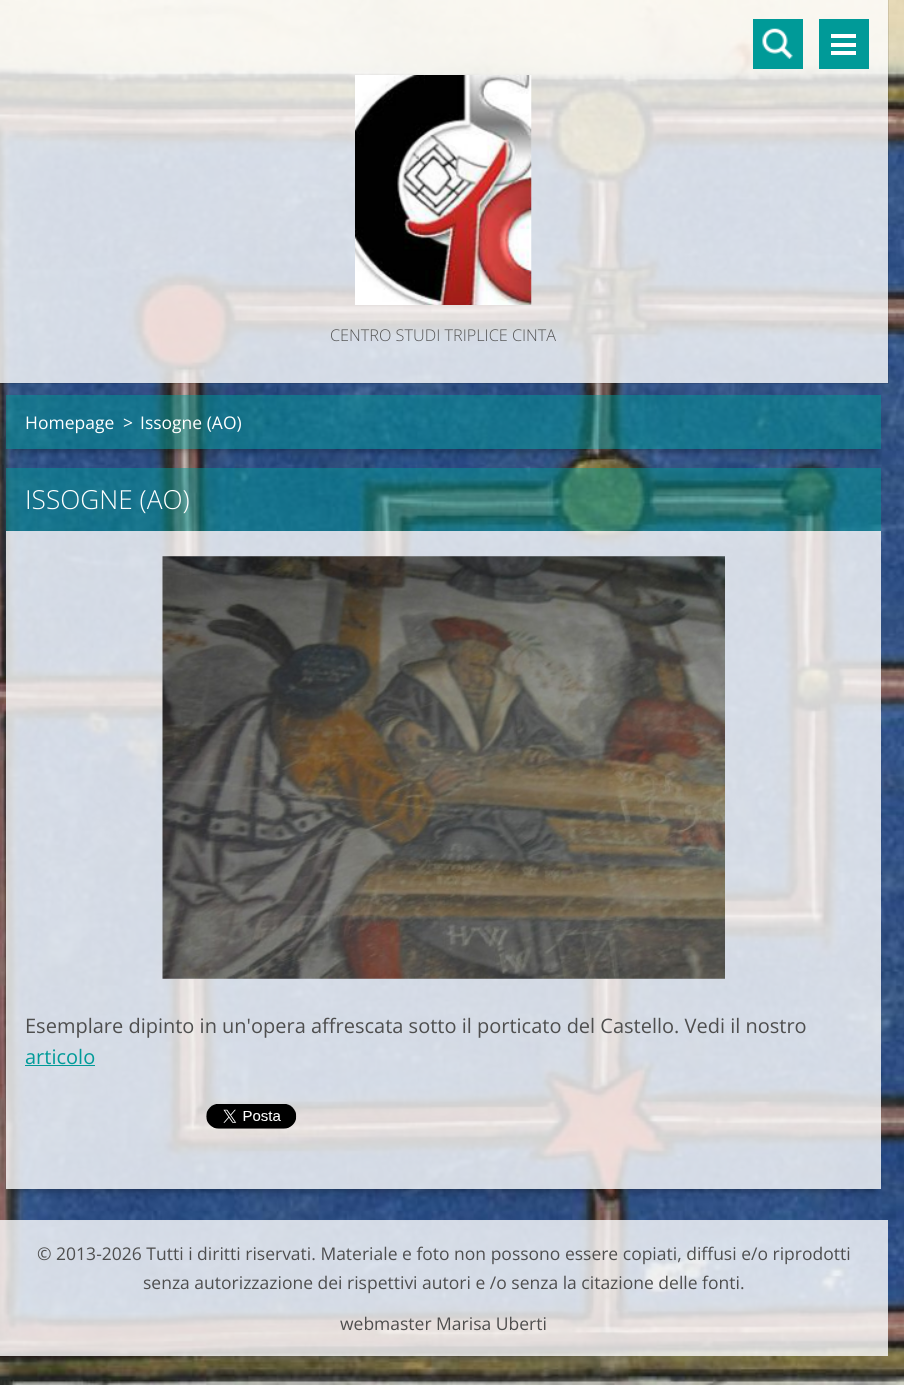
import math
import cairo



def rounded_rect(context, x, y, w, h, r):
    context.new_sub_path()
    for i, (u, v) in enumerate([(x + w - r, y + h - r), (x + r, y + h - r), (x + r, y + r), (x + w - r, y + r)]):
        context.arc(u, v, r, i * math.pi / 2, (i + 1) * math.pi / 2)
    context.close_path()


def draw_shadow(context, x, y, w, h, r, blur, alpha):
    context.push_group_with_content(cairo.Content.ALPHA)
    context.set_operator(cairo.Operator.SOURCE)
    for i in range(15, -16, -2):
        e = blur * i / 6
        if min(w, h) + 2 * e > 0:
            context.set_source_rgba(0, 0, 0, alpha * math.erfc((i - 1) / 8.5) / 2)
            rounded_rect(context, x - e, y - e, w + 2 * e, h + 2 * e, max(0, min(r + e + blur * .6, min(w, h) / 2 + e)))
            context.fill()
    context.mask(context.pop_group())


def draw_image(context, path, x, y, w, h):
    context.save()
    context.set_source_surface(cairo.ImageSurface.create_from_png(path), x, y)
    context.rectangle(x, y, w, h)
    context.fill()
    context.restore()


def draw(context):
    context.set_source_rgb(1, 1, 1)
    context.paint()
    draw_image(context, "images/1.png", 0, 0, 904, 1385)
    context.rectangle(-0.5, -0.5, 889, 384)
    context.set_source_rgba(0, 0, 0, 0.1)
    context.set_line_width(1)
    context.stroke()
    context.set_source_rgba(1, 1, 1, 0.8)
    context.rectangle(0, 0, 888, 320)
    context.fill()
    draw_image(context, "images/2.png", 355, 75, 177, 230)
    context.set_source_rgb(0, 154 / 255, 152 / 255)
    context.rectangle(753, 19, 50, 50)
    context.fill()
    draw_image(context, "images/3.png", 762, 28, 31, 31)
    context.rectangle(819, 19, 50, 50)
    context.fill()
    context.set_source_rgb(1, 1, 1)
    context.rectangle(831, 34, 25, 4)
    context.fill()
    context.rectangle(831, 43, 25, 4)
    context.fill()
    context.rectangle(831, 51, 25, 4)
    context.fill()
    context.set_source_rgba(1, 1, 1, 0.8)
    context.rectangle(0, 320, 888, 63)
    context.fill()
    context.save()
    context.set_fill_rule(cairo.FillRule.EVEN_ODD)
    context.new_path()
    context.move_to(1, 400)
    context.line_to(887, 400)
    context.line_to(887, 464)
    context.line_to(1, 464)
    context.close_path()
    context.move_to(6, 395)
    context.line_to(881, 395)
    context.line_to(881, 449)
    context.line_to(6, 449)
    context.close_path()
    context.clip()
    context.set_source_rgb(0, 0, 0)
    draw_shadow(context, 14, 413, 860, 38, 0, 4, 0.35)
    context.restore()
    context.set_source_rgba(0, 154 / 255, 152 / 255, 0.5)
    context.rectangle(6, 395, 875, 54)
    context.fill()
    context.save()
    context.set_fill_rule(cairo.FillRule.EVEN_ODD)
    context.new_path()
    context.move_to(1, 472)
    context.line_to(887, 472)
    context.line_to(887, 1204)
    context.line_to(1, 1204)
    context.close_path()
    context.move_to(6, 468)
    context.line_to(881, 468)
    context.line_to(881, 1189)
    context.line_to(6, 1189)
    context.close_path()
    context.clip()
    context.set_source_rgb(0, 0, 0)
    draw_shadow(context, 14, 485, 860, 706, 0, 4, 0.35)
    context.restore()
    context.rectangle(6, 468, 875, 63)
    context.fill()
    context.set_source_rgba(1, 1, 1, 0.8)
    context.rectangle(6, 531, 875, 573)
    context.fill()
    draw_image(context, "images/4.png", 162, 556, 563, 423)
    context.set_source_rgb(0, 154 / 255, 152 / 255)
    context.rectangle(25, 1065, 70, 1)
    context.fill()
    context.set_source_rgba(1, 1, 1, 0.8)
    context.rectangle(6, 1104, 875, 85)
    context.fill()
    draw_image(context, "images/5.png", 206, 1104, 91, 25)
    context.rectangle(0, 1220, 888, 89)
    context.fill()
    context.rectangle(0, 1309, 888, 47)
    context.fill()
    context.select_font_face("Open Sans Light")
    context.set_font_size(16.25)
    context.set_source_rgb(85 / 255, 85 / 255, 85 / 255)
    context.move_to(330, 341)
    context.show_text("CENTRO STUDI TRIPLICE CINTA")
    context.select_font_face("Open Sans")
    context.set_font_size(17.5)
    context.set_source_rgb(1, 1, 1)
    context.move_to(25, 429)
    context.show_text("Homepage")
    context.move_to(123, 429)
    context.show_text(">")
    context.move_to(140, 429)
    context.show_text("Issogne (AO)")
    context.select_font_face("Open Sans Light")
    context.set_font_size(26.25)
    context.move_to(25, 509)
    context.show_text("ISSOGNE (AO)")
    context.select_font_face("Open Sans")
    context.set_font_size(20)
    context.set_source_rgb(78 / 255, 78 / 255, 78 / 255)
    context.move_to(25, 1033)
    context.show_text("Esemplare dipinto in un'opera affrescata sotto il porticato del Castello. Vedi il nostro")
    context.set_source_rgb(0, 154 / 255, 152 / 255)
    context.move_to(25, 1064)
    context.show_text("articolo")
    context.set_font_size(17.5)
    context.set_source_rgb(78 / 255, 78 / 255, 78 / 255)
    context.move_to(37, 1260)
    context.show_text("© 2013-2026 Tutti i diritti riservati. Materiale e foto non possono essere copiati, diffusi e/o riprodotti")
    context.move_to(143, 1289)
    context.show_text("senza autorizzazione dei rispettivi autori e /o senza la citazione delle fonti.")
    context.move_to(340, 1330)
    context.show_text("webmaster Marisa Uberti")


surface = cairo.ImageSurface(cairo.Format.RGB24, 904, 1385)
context = cairo.Context(surface)
options = cairo.FontOptions()
options.set_hint_metrics(cairo.HintMetrics.OFF)
options.set_hint_style(cairo.HintStyle.NONE)
context.set_font_options(options)
context.set_miter_limit(4)
draw(context)
surface.write_to_png("out.png")
